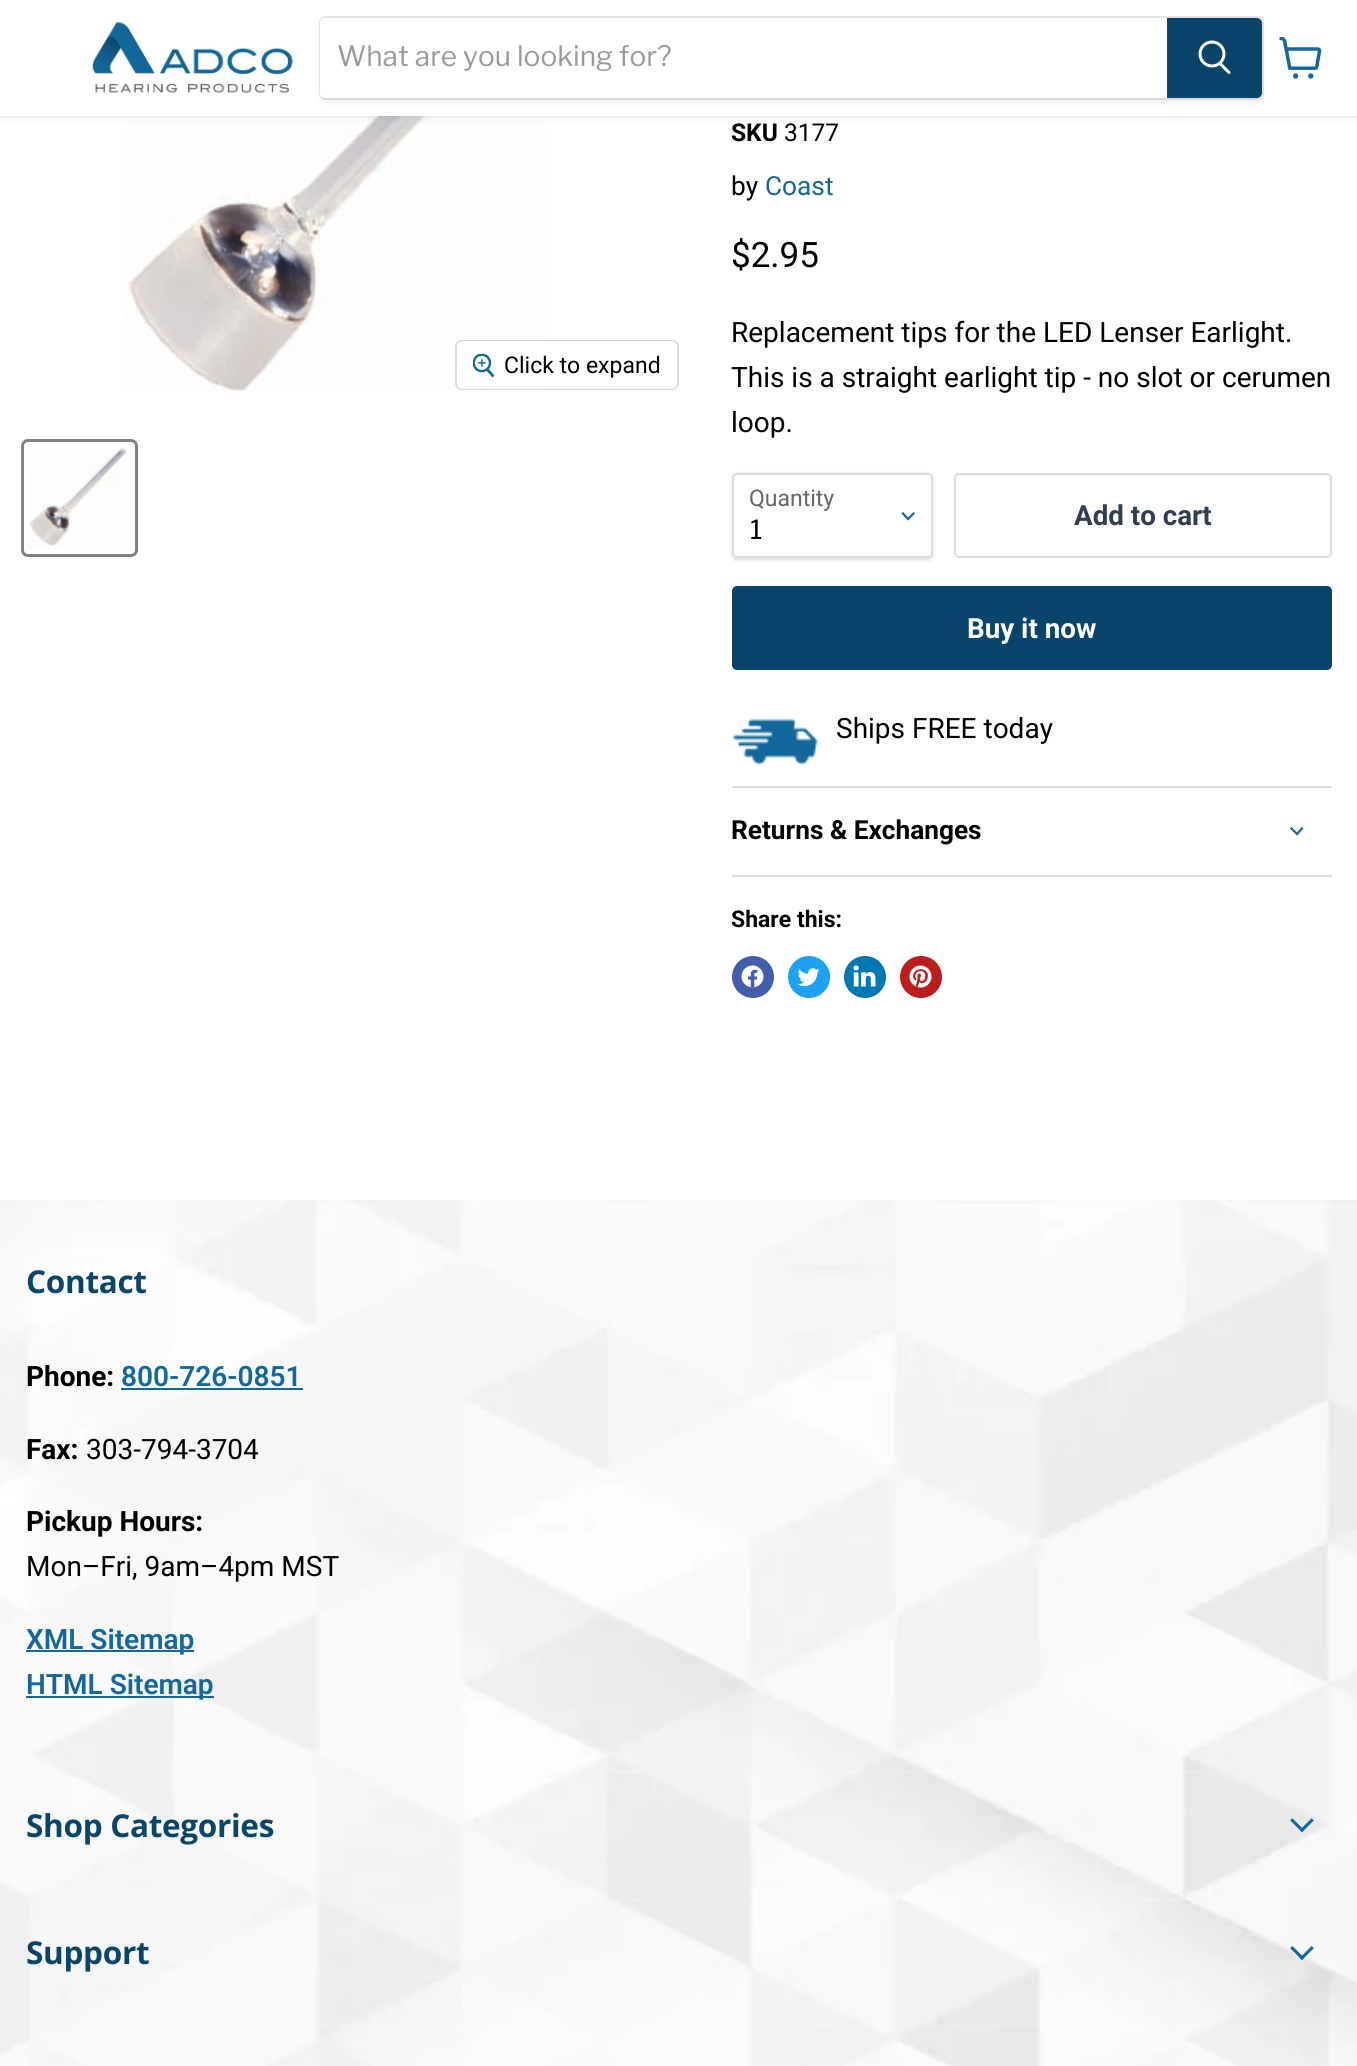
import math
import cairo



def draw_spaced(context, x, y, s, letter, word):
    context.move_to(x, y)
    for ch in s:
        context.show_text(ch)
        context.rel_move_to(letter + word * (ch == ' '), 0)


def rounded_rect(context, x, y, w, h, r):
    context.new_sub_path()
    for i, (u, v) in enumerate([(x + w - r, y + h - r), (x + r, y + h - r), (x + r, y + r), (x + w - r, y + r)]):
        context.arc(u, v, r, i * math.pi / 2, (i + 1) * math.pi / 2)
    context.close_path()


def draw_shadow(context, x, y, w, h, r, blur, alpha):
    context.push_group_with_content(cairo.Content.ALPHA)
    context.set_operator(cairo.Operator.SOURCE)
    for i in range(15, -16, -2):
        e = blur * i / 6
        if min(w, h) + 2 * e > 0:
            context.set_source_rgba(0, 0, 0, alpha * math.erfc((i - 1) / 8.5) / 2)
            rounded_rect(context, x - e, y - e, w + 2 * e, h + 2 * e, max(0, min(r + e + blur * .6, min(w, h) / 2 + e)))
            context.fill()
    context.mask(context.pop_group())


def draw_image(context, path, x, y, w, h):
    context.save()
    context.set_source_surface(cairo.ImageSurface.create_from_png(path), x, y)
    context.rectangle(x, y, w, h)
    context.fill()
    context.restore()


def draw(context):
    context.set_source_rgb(1, 1, 1)
    context.paint()
    draw_image(context, "images/3.png", 125, 116, 420, 276)
    context.set_source_rgb(128 / 255, 128 / 255, 128 / 255)
    draw_shadow(context, 0, 2, 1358, 115, 0, 3.5, 0.25)
    context.set_source_rgb(1, 1, 1)
    context.rectangle(0, 0, 1357, 116)
    context.fill()
    draw_image(context, "images/1.png", 92, 22, 201, 71)
    context.set_source_rgb(128 / 255, 128 / 255, 128 / 255)
    draw_shadow(context, 319, 19, 945, 84, 7, 2.5, 0.11)
    rounded_rect(context, 320, 17, 943, 82, 6)
    context.set_source_rgba(128 / 255, 128 / 255, 128 / 255, 0.2)
    context.stroke()
    context.set_source_rgb(1, 1, 1)
    context.new_path()
    context.move_to(325, 18)
    context.line_to(1167, 18)
    context.line_to(1167, 98)
    context.line_to(325, 98)
    context.curve_to(322, 98, 320, 96, 320, 93)
    context.line_to(320, 23)
    context.curve_to(320, 20, 322, 18, 325, 18)
    context.close_path()
    context.fill()
    context.set_source_rgb(9 / 255, 69 / 255, 106 / 255)
    context.new_path()
    context.move_to(1168, 19)
    context.line_to(1257, 19)
    context.curve_to(1259, 19, 1261, 21, 1261, 23)
    context.line_to(1261, 93)
    context.curve_to(1261, 95, 1259, 97, 1257, 97)
    context.line_to(1168, 97)
    context.close_path()
    context.fill_preserve()
    context.stroke()
    context.new_path()
    context.move_to(1229, 72.5)
    context.line_to(1220.5, 64)
    context.set_source_rgb(1, 1, 1)
    context.set_line_width(3)
    context.set_line_cap(cairo.LineCap.ROUND)
    context.stroke()
    context.arc(1212, 54, 12, 0, 2 * math.pi)
    context.set_line_cap(cairo.LineCap.BUTT)
    context.stroke()
    draw_image(context, "images/2.png", 1279, 37, 43, 42)
    rounded_rect(context, 456, 341, 222, 48, 6)
    context.set_source_rgb(216 / 255, 216 / 255, 216 / 255)
    context.set_line_width(2)
    context.stroke()
    context.set_source_rgba(1, 1, 1, 0.9)
    rounded_rect(context, 457, 341, 220, 48, 5)
    context.fill()
    draw_image(context, "images/4.png", 473, 354, 22, 24)
    rounded_rect(context, 22.5, 440.5, 114, 115, 5.5)
    context.set_source_rgb(129 / 255, 129 / 255, 129 / 255)
    context.set_line_width(3)
    context.stroke()
    draw_image(context, "images/5.png", 28, 445, 99, 104)
    context.set_source_rgb(0, 0, 0)
    draw_shadow(context, 732, 474, 201, 86, 5, 2, 0.15)
    context.set_source_rgb(1, 1, 1)
    rounded_rect(context, 733, 474, 199, 83, 4)
    context.fill_preserve()
    context.set_source_rgb(221 / 255, 221 / 255, 221 / 255)
    context.set_line_width(2)
    context.stroke()
    context.new_path()
    context.move_to(908, 519)
    context.line_to(913.5, 513.5)
    context.move_to(908, 519)
    context.line_to(903, 513.5)
    context.set_source_rgb(18 / 255, 104 / 255, 155 / 255)
    context.set_line_width(2.2)
    context.set_line_cap(cairo.LineCap.SQUARE)
    context.stroke()
    rounded_rect(context, 955, 474, 376, 83, 4)
    context.set_source_rgb(221 / 255, 221 / 255, 221 / 255)
    context.set_line_width(2)
    context.set_line_cap(cairo.LineCap.BUTT)
    context.stroke()
    context.set_source_rgb(9 / 255, 69 / 255, 106 / 255)
    rounded_rect(context, 733, 587, 598, 82, 4)
    context.fill_preserve()
    context.stroke()
    draw_image(context, "images/6.png", 732, 718, 86, 47)
    context.set_source_rgb(221 / 255, 221 / 255, 221 / 255)
    context.rectangle(732, 786, 600, 2)
    context.fill()
    context.rectangle(732, 875, 600, 2)
    context.fill()
    context.new_path()
    context.move_to(1297, 834)
    context.line_to(1302, 828.5)
    context.move_to(1297, 834)
    context.line_to(1291.5, 828.5)
    context.set_source_rgb(18 / 255, 104 / 255, 155 / 255)
    context.set_line_width(2.2)
    context.set_line_cap(cairo.LineCap.SQUARE)
    context.stroke()
    context.set_source_rgb(66 / 255, 93 / 255, 171 / 255)
    context.arc(753, 977, 21, 0, 2 * math.pi)
    context.fill()
    draw_image(context, "images/7.png", 741, 965, 23, 23)
    context.set_source_rgb(29 / 255, 161 / 255, 242 / 255)
    context.arc(809, 977, 21, 0, 2 * math.pi)
    context.fill()
    draw_image(context, "images/8.png", 797, 968, 23, 18)
    context.set_source_rgb(0, 119 / 255, 181 / 255)
    context.arc(865, 977, 21, 0, 2 * math.pi)
    context.fill()
    draw_image(context, "images/9.png", 853, 965, 23, 22)
    context.set_source_rgb(189 / 255, 28 / 255, 28 / 255)
    context.arc(921, 977, 21, 0, 2 * math.pi)
    context.fill()
    draw_image(context, "images/10.png", 909, 965, 23, 23)
    draw_image(context, "images/11.png", 0, 1200, 1357, 866)
    context.set_source_rgba(1, 1, 1, 0.15)
    context.rectangle(609, 1771, 615, 2)
    context.fill()
    context.set_source_rgb(18 / 255, 104 / 255, 155 / 255)
    context.rectangle(121, 1388, 182, 2)
    context.fill()
    context.rectangle(26, 1650, 168, 2)
    context.fill()
    context.rectangle(26, 1696, 188, 2)
    context.fill()
    context.set_source_rgba(1, 1, 1, 0.15)
    context.rectangle(616, 1899, 573, 2)
    context.fill()
    draw_image(context, "images/12.png", 1290, 1818, 24, 14)
    context.rectangle(320, 2025, 1012, 2)
    context.fill()
    draw_image(context, "images/13.png", 1290, 1946, 24, 14)
    context.select_font_face("Libre Franklin")
    context.set_font_size(28)
    context.set_source_rgb(153 / 255, 153 / 255, 153 / 255)
    context.move_to(337, 66)
    context.show_text("What are you looking for?")
    context.select_font_face("Roboto")
    context.set_font_size(23)
    context.set_source_rgb(0, 0, 0)
    context.move_to(504, 373)
    context.show_text("Click to expand")
    context.select_font_face("Roboto", cairo.FontSlant.NORMAL, cairo.FontWeight.BOLD)
    context.set_font_size(24.5)
    context.move_to(731, 141)
    context.show_text("SKU")
    context.select_font_face("Roboto")
    context.move_to(784, 141)
    context.show_text("3177")
    context.set_font_size(26.25)
    context.move_to(731, 195)
    context.show_text("by")
    context.set_source_rgb(18 / 255, 104 / 255, 155 / 255)
    context.move_to(765, 195)
    context.show_text("Coast")
    context.set_font_size(35)
    context.set_source_rgb(0, 0, 0)
    context.move_to(731, 267)
    context.show_text("$2.95")
    context.set_font_size(28)
    context.move_to(731, 342)
    context.show_text("Replacement tips for the LED Lenser Earlight.")
    context.move_to(731, 387)
    context.show_text("This is a straight earlight tip - no slot or cerumen")
    context.move_to(731, 432)
    context.show_text("loop.")
    context.set_font_size(23)
    context.set_source_rgb(102 / 255, 102 / 255, 102 / 255)
    context.move_to(749, 506)
    context.show_text("Quantity")
    context.select_font_face("Libre Franklin")
    context.set_font_size(26.25)
    context.set_source_rgb(0, 0, 0)
    context.move_to(750, 539)
    context.show_text("1")
    context.select_font_face("Roboto", cairo.FontSlant.NORMAL, cairo.FontWeight.BOLD)
    context.set_font_size(27.75)
    context.set_source_rgb(51 / 255, 61 / 255, 81 / 255)
    context.move_to(1074, 525)
    context.show_text("Add to cart")
    context.set_source_rgb(1, 1, 1)
    context.move_to(967, 638)
    context.show_text("Buy it now")
    context.select_font_face("Roboto")
    context.set_font_size(28)
    context.set_source_rgb(0, 0, 0)
    context.move_to(836, 738)
    context.show_text("Ships FREE today")
    context.select_font_face("Roboto", cairo.FontSlant.NORMAL, cairo.FontWeight.BOLD)
    context.set_font_size(26.25)
    context.move_to(731, 839)
    context.show_text("Returns & Exchanges")
    context.set_font_size(23)
    context.move_to(731, 927)
    context.show_text("Share this:")
    context.select_font_face("Open Sans", cairo.FontSlant.NORMAL, cairo.FontWeight.BOLD)
    context.set_font_size(31.5)
    context.set_source_rgb(9 / 255, 69 / 255, 106 / 255)
    draw_spaced(context, 26, 1293, "Contact", -0.3, 0)
    context.select_font_face("Roboto", cairo.FontSlant.NORMAL, cairo.FontWeight.BOLD)
    context.set_font_size(28)
    context.set_source_rgb(0, 0, 0)
    context.move_to(26, 1386)
    context.show_text("Phone:")
    context.select_font_face("Roboto SemiBold")
    context.set_source_rgb(18 / 255, 104 / 255, 155 / 255)
    context.move_to(121, 1386)
    context.show_text("800-726-0851")
    context.select_font_face("Roboto", cairo.FontSlant.NORMAL, cairo.FontWeight.BOLD)
    context.set_source_rgb(0, 0, 0)
    context.move_to(26, 1459)
    context.show_text("Fax:")
    context.select_font_face("Roboto")
    context.move_to(86, 1459)
    context.show_text("303-794-3704")
    context.select_font_face("Roboto", cairo.FontSlant.NORMAL, cairo.FontWeight.BOLD)
    context.move_to(26, 1531)
    context.show_text("Pickup Hours:")
    context.select_font_face("Roboto")
    context.move_to(26, 1576)
    context.show_text("Mon–Fri, 9am–4pm MST")
    context.select_font_face("Roboto SemiBold")
    context.set_source_rgb(18 / 255, 104 / 255, 155 / 255)
    context.move_to(26, 1649)
    context.show_text("XML Sitemap")
    context.move_to(26, 1694)
    context.show_text("HTML Sitemap")
    context.select_font_face("Open Sans", cairo.FontSlant.NORMAL, cairo.FontWeight.BOLD)
    context.set_font_size(31.5)
    context.set_source_rgb(9 / 255, 69 / 255, 106 / 255)
    draw_spaced(context, 26, 1837, "Shop Categories", -0.3, 0)
    draw_spaced(context, 26, 1964, "Support", -0.3, 0)


surface = cairo.ImageSurface(cairo.Format.RGB24, 1357, 2066)
context = cairo.Context(surface)
options = cairo.FontOptions()
options.set_hint_metrics(cairo.HintMetrics.OFF)
options.set_hint_style(cairo.HintStyle.NONE)
context.set_font_options(options)
context.set_miter_limit(4)
draw(context)
surface.write_to_png("out.png")
